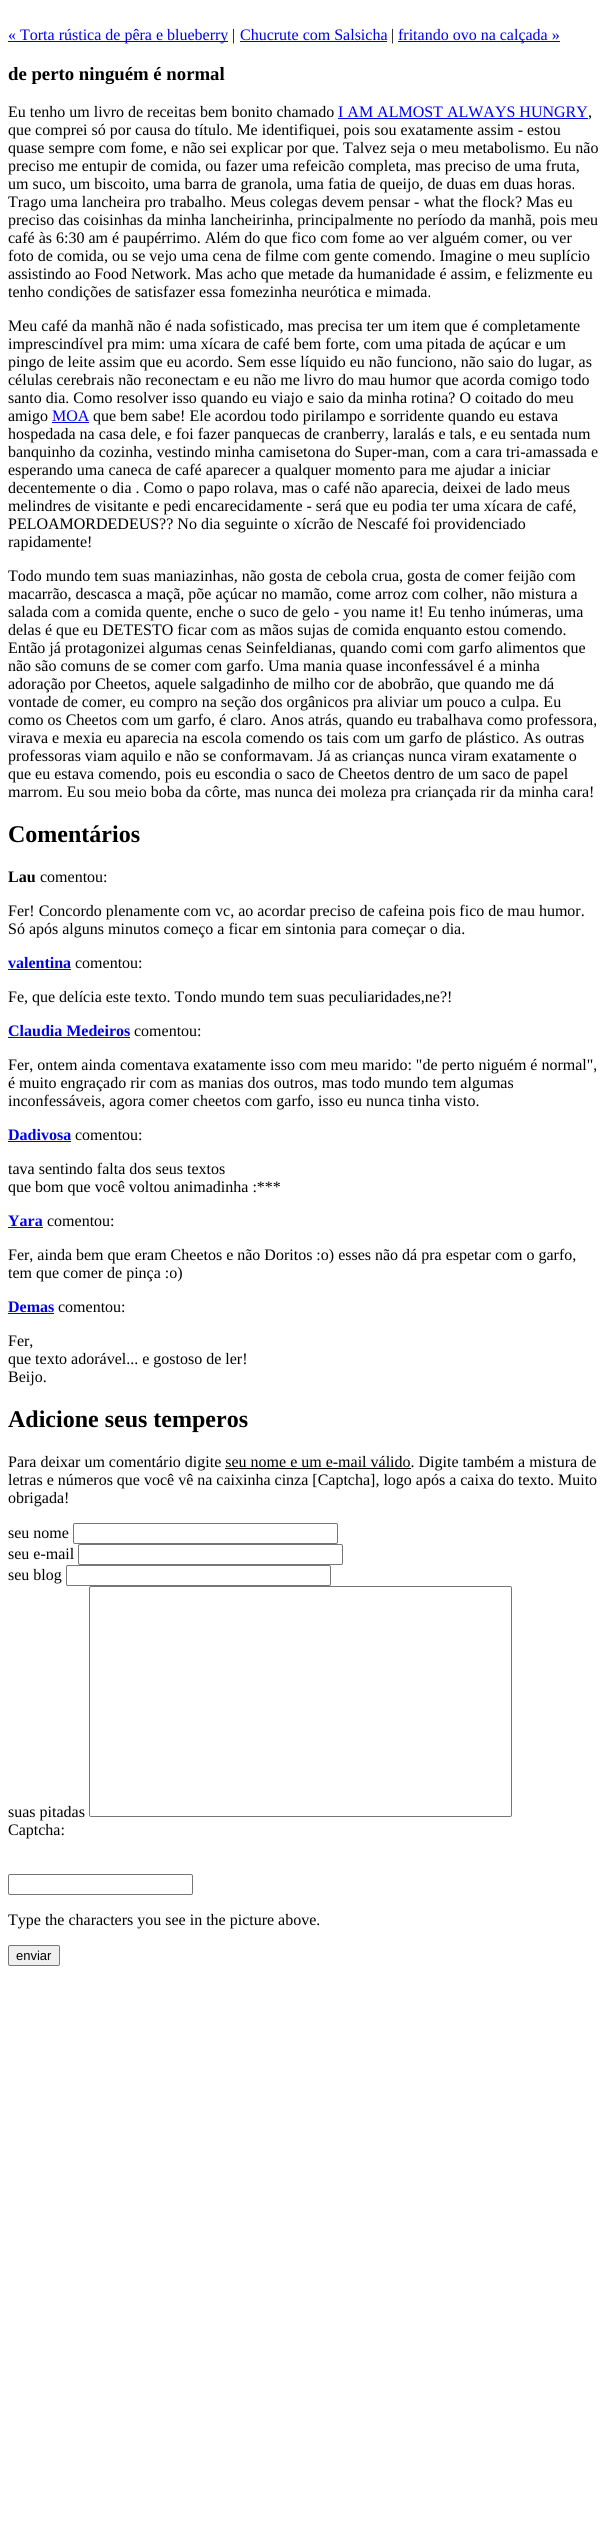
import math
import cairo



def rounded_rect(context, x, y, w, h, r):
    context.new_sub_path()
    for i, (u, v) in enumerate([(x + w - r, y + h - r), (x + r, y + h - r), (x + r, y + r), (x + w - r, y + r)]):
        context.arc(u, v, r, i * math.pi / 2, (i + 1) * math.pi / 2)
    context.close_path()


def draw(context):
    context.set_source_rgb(1, 1, 1)
    context.paint()
    context.set_source_rgb(0, 0, 238 / 255)
    context.rectangle(8, 41, 220, 1)
    context.fill()
    context.rectangle(240, 41, 147, 1)
    context.fill()
    context.rectangle(398, 41, 162, 1)
    context.fill()
    context.rectangle(338, 118, 250, 1)
    context.fill()
    context.rectangle(52, 422, 37, 1)
    context.fill()
    context.rectangle(8, 969, 63, 1)
    context.fill()
    context.rectangle(8, 1037, 122, 1)
    context.fill()
    context.rectangle(8, 1141, 63, 1)
    context.fill()
    context.rectangle(8, 1227, 35, 1)
    context.fill()
    context.rectangle(8, 1313, 46, 1)
    context.fill()
    context.set_source_rgb(0, 0, 0)
    context.rectangle(225, 1468, 186, 1)
    context.fill()
    rounded_rect(context, 73.5, 1523.5, 264, 20, 1.5)
    context.set_source_rgb(118 / 255, 118 / 255, 118 / 255)
    context.set_line_width(1)
    context.stroke()
    rounded_rect(context, 78.5, 1544.5, 264, 20, 1.5)
    context.stroke()
    rounded_rect(context, 66.5, 1565.5, 264, 20, 1.5)
    context.stroke()
    rounded_rect(context, 89.5, 1586.5, 422, 230, 1.5)
    context.stroke()
    rounded_rect(context, 8.5, 1874.5, 184, 20, 1.5)
    context.stroke()
    context.set_source_rgb(239 / 255, 239 / 255, 239 / 255)
    rounded_rect(context, 8.5, 1945.5, 51, 20, 1.5)
    context.fill_preserve()
    context.set_source_rgb(118 / 255, 118 / 255, 118 / 255)
    context.stroke()
    context.select_font_face("Liberation Serif")
    context.set_font_size(16)
    context.set_source_rgb(0, 0, 238 / 255)
    context.move_to(8, 40)
    context.show_text("« Torta rústica de pêra e blueberry")
    context.set_source_rgb(0, 0, 0)
    context.move_to(232, 40)
    context.show_text("|")
    context.set_source_rgb(0, 0, 238 / 255)
    context.move_to(240, 40)
    context.show_text("Chucrute com Salsicha")
    context.set_source_rgb(0, 0, 0)
    context.move_to(391, 40)
    context.show_text("|")
    context.set_source_rgb(0, 0, 238 / 255)
    context.move_to(398, 40)
    context.show_text("fritando ovo na calçada »")
    context.select_font_face("Liberation Serif", cairo.FontSlant.NORMAL, cairo.FontWeight.BOLD)
    context.set_font_size(18.75)
    context.set_source_rgb(0, 0, 0)
    context.move_to(8, 80)
    context.show_text("de perto ninguém é normal")
    context.select_font_face("Liberation Serif")
    context.set_font_size(16)
    context.move_to(8, 117)
    context.show_text("Eu tenho um livro de receitas bem bonito chamado")
    context.set_source_rgb(0, 0, 238 / 255)
    context.move_to(338, 117)
    context.show_text("I AM ALMOST ALWAYS HUNGRY")
    context.set_source_rgb(0, 0, 0)
    context.move_to(588, 117)
    context.show_text(",")
    context.move_to(8, 135)
    context.show_text("que comprei só por causa do título. Me identifiquei, pois sou exatamente assim - estou")
    context.move_to(8, 153)
    context.show_text("quase sempre com fome, e não sei explicar por que. Talvez seja o meu metabolismo. Eu não")
    context.move_to(8, 171)
    context.show_text("preciso me entupir de comida, ou fazer uma refeicão completa, mas preciso de uma fruta,")
    context.move_to(8, 189)
    context.show_text("um suco, um biscoito, uma barra de granola, uma fatia de queijo, de duas em duas horas.")
    context.move_to(8, 207)
    context.show_text("Trago uma lancheira pro trabalho. Meus colegas devem pensar - what the flock? Mas eu")
    context.move_to(8, 225)
    context.show_text("preciso das coisinhas da minha lancheirinha, principalmente no período da manhã, pois meu")
    context.move_to(8, 243)
    context.show_text("café às 6:30 am é paupérrimo. Além do que fico com fome ao ver alguém comer, ou ver")
    context.move_to(8, 261)
    context.show_text("foto de comida, ou se vejo uma cena de filme com gente comendo. Imagine o meu suplício")
    context.move_to(8, 279)
    context.show_text("assistindo ao Food Network. Mas acho que metade da humanidade é assim, e felizmente eu")
    context.move_to(8, 297)
    context.show_text("tenho condições de satisfazer essa fomezinha neurótica e mimada.")
    context.move_to(8, 331)
    context.show_text("Meu café da manhã não é nada sofisticado, mas precisa ter um item que é completamente")
    context.move_to(8, 349)
    context.show_text("imprescindível pra mim: uma xícara de café bem forte, com uma pitada de açúcar e um")
    context.move_to(8, 367)
    context.show_text("pingo de leite assim que eu acordo. Sem esse líquido eu não funciono, não saio do lugar, as")
    context.move_to(8, 385)
    context.show_text("células cerebrais não reconectam e eu não me livro do mau humor que acorda comigo todo")
    context.move_to(8, 403)
    context.show_text("santo dia. Como resolver isso quando eu viajo e saio da minha rotina? O coitado do meu")
    context.move_to(8, 421)
    context.show_text("amigo")
    context.set_source_rgb(0, 0, 238 / 255)
    context.move_to(52, 421)
    context.show_text("MOA")
    context.set_source_rgb(0, 0, 0)
    context.move_to(93, 421)
    context.show_text("que bem sabe! Ele acordou todo pirilampo e sorridente quando eu estava")
    context.move_to(8, 439)
    context.show_text("hospedada na casa dele, e foi fazer panquecas de cranberry, laralás e tals, e eu sentada num")
    context.move_to(8, 457)
    context.show_text("banquinho da cozinha, vestindo minha camisetona do Super-man, com a cara tri-amassada e")
    context.move_to(8, 475)
    context.show_text("esperando uma caneca de café aparecer a qualquer momento para me ajudar a iniciar")
    context.move_to(8, 493)
    context.show_text("decentemente o dia . Como o papo rolava, mas o café não aparecia, deixei de lado meus")
    context.move_to(8, 511)
    context.show_text("melindres de visitante e pedi encarecidamente - será que eu podia ter uma xícara de café,")
    context.move_to(8, 529)
    context.show_text("PELOAMORDEDEUS?? No dia seguinte o xícrão de Nescafé foi providenciado")
    context.move_to(8, 547)
    context.show_text("rapidamente!")
    context.move_to(8, 581)
    context.show_text("Todo mundo tem suas maniazinhas, não gosta de cebola crua, gosta de comer feijão com")
    context.move_to(8, 599)
    context.show_text("macarrão, descasca a maçã, põe açúcar no mamão, come arroz com colher, não mistura a")
    context.move_to(8, 617)
    context.show_text("salada com a comida quente, enche o suco de gelo - you name it! Eu tenho inúmeras, uma")
    context.move_to(8, 635)
    context.show_text("delas é que eu DETESTO ficar com as mãos sujas de comida enquanto estou comendo.")
    context.move_to(8, 653)
    context.show_text("Então já protagonizei algumas cenas Seinfeldianas, quando comi com garfo alimentos que")
    context.move_to(8, 671)
    context.show_text("não são comuns de se comer com garfo. Uma mania quase inconfessável é a minha")
    context.move_to(8, 689)
    context.show_text("adoração por Cheetos, aquele salgadinho de milho cor de abobrão, que quando me dá")
    context.move_to(8, 707)
    context.show_text("vontade de comer, eu compro na seção dos orgânicos pra aliviar um pouco a culpa. Eu")
    context.move_to(8, 725)
    context.show_text("como os Cheetos com um garfo, é claro. Anos atrás, quando eu trabalhava como professora,")
    context.move_to(8, 743)
    context.show_text("virava e mexia eu aparecia na escola comendo os tais com um garfo de plástico. As outras")
    context.move_to(8, 761)
    context.show_text("professoras viam aquilo e não se conformavam. Já as crianças nunca viram exatamente o")
    context.move_to(8, 779)
    context.show_text("que eu estava comendo, pois eu escondia o saco de Cheetos dentro de um saco de papel")
    context.move_to(8, 797)
    context.show_text("marrom. Eu sou meio boba da côrte, mas nunca dei moleza pra criançada rir da minha cara!")
    context.select_font_face("Liberation Serif", cairo.FontSlant.NORMAL, cairo.FontWeight.BOLD)
    context.set_font_size(24)
    context.move_to(8, 842)
    context.show_text("Comentários")
    context.set_font_size(16)
    context.move_to(8, 882)
    context.show_text("Lau")
    context.select_font_face("Liberation Serif")
    context.move_to(40, 882)
    context.show_text("comentou:")
    context.move_to(8, 916)
    context.show_text("Fer! Concordo plenamente com vc, ao acordar preciso de cafeina pois fico de mau humor.")
    context.move_to(8, 934)
    context.show_text("Só após alguns minutos começo a ficar em sintonia para começar o dia.")
    context.select_font_face("Liberation Serif", cairo.FontSlant.NORMAL, cairo.FontWeight.BOLD)
    context.set_source_rgb(0, 0, 238 / 255)
    context.move_to(8, 968)
    context.show_text("valentina")
    context.select_font_face("Liberation Serif")
    context.set_source_rgb(0, 0, 0)
    context.move_to(75, 968)
    context.show_text("comentou:")
    context.move_to(8, 1002)
    context.show_text("Fe, que delícia este texto. Tondo mundo tem suas peculiaridades,ne?!")
    context.select_font_face("Liberation Serif", cairo.FontSlant.NORMAL, cairo.FontWeight.BOLD)
    context.set_source_rgb(0, 0, 238 / 255)
    context.move_to(8, 1036)
    context.show_text("Claudia Medeiros")
    context.select_font_face("Liberation Serif")
    context.set_source_rgb(0, 0, 0)
    context.move_to(134, 1036)
    context.show_text("comentou:")
    context.move_to(8, 1070)
    context.show_text("Fer, ontem ainda comentava exatamente isso com meu marido: \"de perto niguém é normal\",")
    context.move_to(8, 1088)
    context.show_text("é muito engraçado rir com as manias dos outros, mas todo mundo tem algumas")
    context.move_to(8, 1106)
    context.show_text("inconfessáveis, agora comer cheetos com garfo, isso eu nunca tinha visto.")
    context.select_font_face("Liberation Serif", cairo.FontSlant.NORMAL, cairo.FontWeight.BOLD)
    context.set_source_rgb(0, 0, 238 / 255)
    context.move_to(8, 1140)
    context.show_text("Dadivosa")
    context.select_font_face("Liberation Serif")
    context.set_source_rgb(0, 0, 0)
    context.move_to(75, 1140)
    context.show_text("comentou:")
    context.move_to(8, 1174)
    context.show_text("tava sentindo falta dos seus textos")
    context.move_to(8, 1192)
    context.show_text("que bom que você voltou animadinha :***")
    context.select_font_face("Liberation Serif", cairo.FontSlant.NORMAL, cairo.FontWeight.BOLD)
    context.set_source_rgb(0, 0, 238 / 255)
    context.move_to(8, 1226)
    context.show_text("Yara")
    context.select_font_face("Liberation Serif")
    context.set_source_rgb(0, 0, 0)
    context.move_to(47, 1226)
    context.show_text("comentou:")
    context.move_to(8, 1260)
    context.show_text("Fer, ainda bem que eram Cheetos e não Doritos :o) esses não dá pra espetar com o garfo,")
    context.move_to(8, 1278)
    context.show_text("tem que comer de pinça :o)")
    context.select_font_face("Liberation Serif", cairo.FontSlant.NORMAL, cairo.FontWeight.BOLD)
    context.set_source_rgb(0, 0, 238 / 255)
    context.move_to(8, 1312)
    context.show_text("Demas")
    context.select_font_face("Liberation Serif")
    context.set_source_rgb(0, 0, 0)
    context.move_to(58, 1312)
    context.show_text("comentou:")
    context.move_to(8, 1346)
    context.show_text("Fer,")
    context.move_to(8, 1364)
    context.show_text("que texto adorável... e gostoso de ler!")
    context.move_to(8, 1382)
    context.show_text("Beijo.")
    context.select_font_face("Liberation Serif", cairo.FontSlant.NORMAL, cairo.FontWeight.BOLD)
    context.set_font_size(24)
    context.move_to(8, 1427)
    context.show_text("Adicione seus temperos")
    context.select_font_face("Liberation Serif")
    context.set_font_size(16)
    context.move_to(8, 1467)
    context.show_text("Para deixar um comentário digite seu nome e um e-mail válido. Digite também a mistura de")
    context.move_to(8, 1485)
    context.show_text("letras e números que você vê na caixinha cinza [Captcha], logo após a caixa do texto. Muito")
    context.move_to(8, 1503)
    context.show_text("obrigada!")
    context.move_to(8, 1538)
    context.show_text("seu nome")
    context.move_to(8, 1559)
    context.show_text("seu e-mail")
    context.move_to(8, 1580)
    context.show_text("seu blog")
    context.move_to(8, 1817)
    context.show_text("suas pitadas")
    context.move_to(8, 1835)
    context.show_text("Captcha:")
    context.move_to(8, 1925)
    context.show_text("Type the characters you see in the picture above.")
    context.select_font_face("Liberation Sans")
    context.set_font_size(13)
    context.move_to(16, 1960)
    context.show_text("enviar")


surface = cairo.ImageSurface(cairo.Format.RGB24, 608, 2523)
context = cairo.Context(surface)
options = cairo.FontOptions()
options.set_hint_metrics(cairo.HintMetrics.OFF)
options.set_hint_style(cairo.HintStyle.NONE)
context.set_font_options(options)
context.set_miter_limit(4)
draw(context)
surface.write_to_png("out.png")
